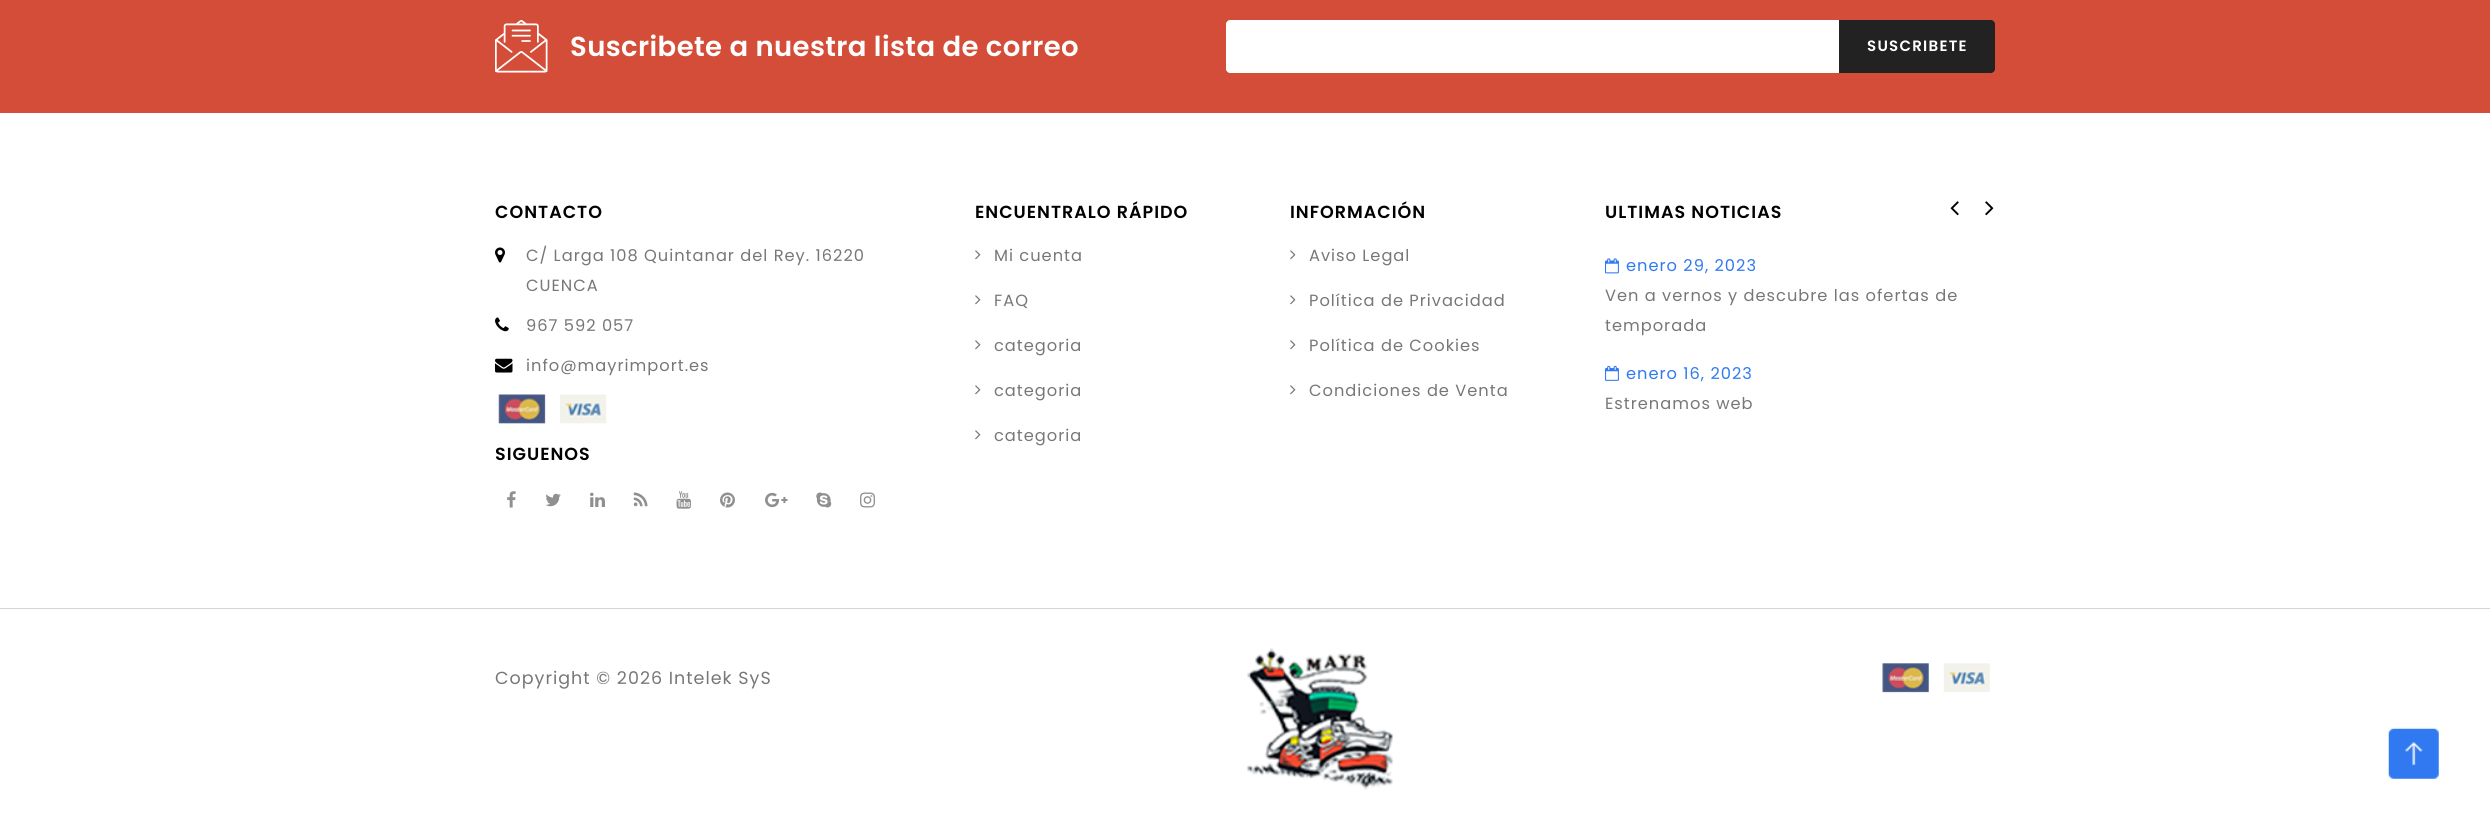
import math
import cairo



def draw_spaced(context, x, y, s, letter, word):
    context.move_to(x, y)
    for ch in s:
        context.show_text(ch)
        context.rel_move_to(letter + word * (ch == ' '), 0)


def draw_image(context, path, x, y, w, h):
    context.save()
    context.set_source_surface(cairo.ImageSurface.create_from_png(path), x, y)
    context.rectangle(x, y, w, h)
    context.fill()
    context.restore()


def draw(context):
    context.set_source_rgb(1, 1, 1)
    context.paint()
    context.set_source_rgb(212 / 255, 77 / 255, 56 / 255)
    context.rectangle(0, 0, 2490, 113)
    context.fill()
    draw_image(context, "images/1.png", 495, 20, 53, 53)
    context.set_source_rgb(1, 1, 1)
    context.new_path()
    context.move_to(1230, 20)
    context.line_to(1839, 20)
    context.line_to(1839, 73)
    context.line_to(1230, 73)
    context.curve_to(1228, 73, 1226, 71, 1226, 69)
    context.line_to(1226, 24)
    context.curve_to(1226, 22, 1228, 20, 1230, 20)
    context.close_path()
    context.fill()
    context.set_source_rgb(34 / 255, 34 / 255, 34 / 255)
    context.new_path()
    context.move_to(1839, 20)
    context.line_to(1991, 20)
    context.curve_to(1993, 20, 1995, 22, 1995, 24)
    context.line_to(1995, 69)
    context.curve_to(1995, 71, 1993, 73, 1991, 73)
    context.line_to(1839, 73)
    context.close_path()
    context.fill()
    draw_image(context, "images/2.png", 495, 247, 10, 16)
    draw_image(context, "images/3.png", 495, 317, 14, 15)
    draw_image(context, "images/4.png", 495, 358, 18, 15)
    draw_image(context, "images/5.png", 498, 394, 48, 30)
    draw_image(context, "images/6.png", 560, 394, 47, 30)
    draw_image(context, "images/7.png", 507, 491, 9, 17)
    draw_image(context, "images/8.png", 545, 493, 16, 14)
    draw_image(context, "images/9.png", 590, 492, 15, 15)
    draw_image(context, "images/10.png", 633, 492, 15, 15)
    draw_image(context, "images/11.png", 676, 491, 15, 18)
    draw_image(context, "images/12.png", 720, 492, 15, 16)
    draw_image(context, "images/13.png", 765, 492, 23, 16)
    draw_image(context, "images/14.png", 816, 492, 16, 16)
    draw_image(context, "images/15.png", 860, 492, 15, 16)
    draw_image(context, "images/16.png", 975, 250, 6, 10)
    draw_image(context, "images/16.png", 975, 295, 6, 10)
    draw_image(context, "images/16.png", 975, 340, 6, 10)
    draw_image(context, "images/16.png", 975, 385, 6, 10)
    draw_image(context, "images/16.png", 975, 430, 6, 10)
    draw_image(context, "images/16.png", 1290, 250, 6, 10)
    draw_image(context, "images/16.png", 1290, 295, 6, 10)
    draw_image(context, "images/16.png", 1290, 340, 6, 10)
    draw_image(context, "images/16.png", 1290, 385, 6, 10)
    draw_image(context, "images/17.png", 1950, 201, 9, 15)
    draw_image(context, "images/18.png", 1985, 201, 9, 15)
    draw_image(context, "images/19.png", 1605, 258, 14, 16)
    draw_image(context, "images/20.png", 1605, 365, 14, 16)
    context.set_source_rgb(212 / 255, 212 / 255, 212 / 255)
    context.rectangle(0, 608, 2490, 1)
    context.fill()
    draw_image(context, "images/21.png", 1247, 648, 146, 142)
    draw_image(context, "images/22.png", 1882, 663, 47, 30)
    draw_image(context, "images/23.png", 1943, 663, 47, 29)
    draw_image(context, "images/24.png", 2388, 728, 51, 51)
    context.select_font_face("Poppins SemiBold")
    context.set_font_size(27.5)
    context.set_source_rgb(1, 1, 1)
    draw_spaced(context, 570, 56, "Suscribete a nuestra lista de correo", 0.4, 0)
    context.set_font_size(15)
    draw_spaced(context, 1867, 51, "SUSCRIBETE", 1.25, 0)
    context.set_font_size(17.5)
    context.set_source_rgb(0, 0, 0)
    draw_spaced(context, 495, 218, "CONTACTO", 1, 0)
    context.select_font_face("Poppins")
    context.set_font_size(16.25)
    context.set_source_rgb(119 / 255, 119 / 255, 119 / 255)
    draw_spaced(context, 526, 261, "C/ Larga 108 Quintanar del Rey. 16220", 1, 0)
    draw_spaced(context, 526, 291, "CUENCA", 1, 0)
    draw_spaced(context, 526, 331, "967 592 057", 1, 0)
    draw_spaced(context, 526, 371, "info@mayrimport.es", 1, 0)
    context.select_font_face("Poppins SemiBold")
    context.set_font_size(17.5)
    context.set_source_rgb(0, 0, 0)
    draw_spaced(context, 495, 460, "SIGUENOS", 1, 0)
    draw_spaced(context, 975, 218, "ENCUENTRALO RÁPIDO", 1, 0)
    context.select_font_face("Poppins")
    context.set_font_size(16.25)
    context.set_source_rgb(119 / 255, 119 / 255, 119 / 255)
    draw_spaced(context, 994, 261, "Mi cuenta", 1, 0)
    draw_spaced(context, 994, 306, "FAQ", 1, 0)
    draw_spaced(context, 994, 351, "categoria", 1, 0)
    draw_spaced(context, 994, 396, "categoria", 1, 0)
    draw_spaced(context, 994, 441, "categoria", 1, 0)
    context.select_font_face("Poppins SemiBold")
    context.set_font_size(17.5)
    context.set_source_rgb(0, 0, 0)
    draw_spaced(context, 1290, 218, "INFORMACIÓN", 1, 0)
    context.select_font_face("Poppins")
    context.set_font_size(16.25)
    context.set_source_rgb(119 / 255, 119 / 255, 119 / 255)
    draw_spaced(context, 1309, 261, "Aviso Legal", 1, 0)
    draw_spaced(context, 1309, 306, "Política de Privacidad", 1, 0)
    draw_spaced(context, 1309, 351, "Política de Cookies", 1, 0)
    draw_spaced(context, 1309, 396, "Condiciones de Venta", 1, 0)
    context.select_font_face("Poppins SemiBold")
    context.set_font_size(17.5)
    context.set_source_rgb(0, 0, 0)
    draw_spaced(context, 1605, 218, "ULTIMAS NOTICIAS", 1, 0)
    context.select_font_face("Poppins")
    context.set_font_size(16.25)
    context.set_source_rgb(48 / 255, 121 / 255, 241 / 255)
    draw_spaced(context, 1626, 271, "enero 29, 2023", 1, 0)
    context.set_source_rgb(119 / 255, 119 / 255, 119 / 255)
    draw_spaced(context, 1605, 301, "Ven a vernos y descubre las ofertas de", 1, 0)
    draw_spaced(context, 1605, 331, "temporada", 1, 0)
    context.set_source_rgb(48 / 255, 121 / 255, 241 / 255)
    draw_spaced(context, 1626, 379, "enero 16, 2023", 1, 0)
    context.set_source_rgb(119 / 255, 119 / 255, 119 / 255)
    draw_spaced(context, 1605, 409, "Estrenamos web", 1, 0)
    context.set_font_size(17.5)
    draw_spaced(context, 495, 684, "Copyright © 2026 Intelek SyS", 1, 0)


surface = cairo.ImageSurface(cairo.Format.RGB24, 2490, 829)
context = cairo.Context(surface)
options = cairo.FontOptions()
options.set_hint_metrics(cairo.HintMetrics.OFF)
options.set_hint_style(cairo.HintStyle.NONE)
context.set_font_options(options)
context.set_miter_limit(4)
draw(context)
surface.write_to_png("out.png")
